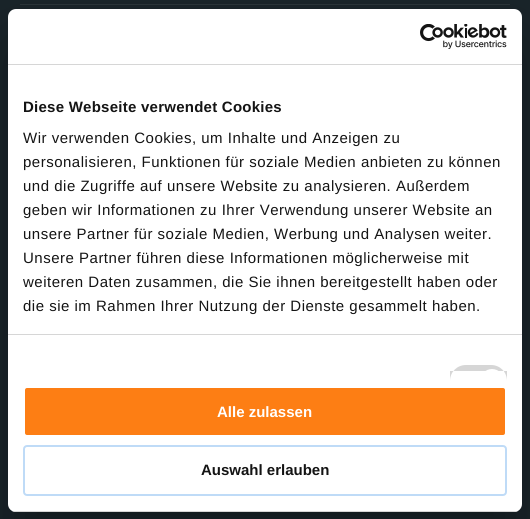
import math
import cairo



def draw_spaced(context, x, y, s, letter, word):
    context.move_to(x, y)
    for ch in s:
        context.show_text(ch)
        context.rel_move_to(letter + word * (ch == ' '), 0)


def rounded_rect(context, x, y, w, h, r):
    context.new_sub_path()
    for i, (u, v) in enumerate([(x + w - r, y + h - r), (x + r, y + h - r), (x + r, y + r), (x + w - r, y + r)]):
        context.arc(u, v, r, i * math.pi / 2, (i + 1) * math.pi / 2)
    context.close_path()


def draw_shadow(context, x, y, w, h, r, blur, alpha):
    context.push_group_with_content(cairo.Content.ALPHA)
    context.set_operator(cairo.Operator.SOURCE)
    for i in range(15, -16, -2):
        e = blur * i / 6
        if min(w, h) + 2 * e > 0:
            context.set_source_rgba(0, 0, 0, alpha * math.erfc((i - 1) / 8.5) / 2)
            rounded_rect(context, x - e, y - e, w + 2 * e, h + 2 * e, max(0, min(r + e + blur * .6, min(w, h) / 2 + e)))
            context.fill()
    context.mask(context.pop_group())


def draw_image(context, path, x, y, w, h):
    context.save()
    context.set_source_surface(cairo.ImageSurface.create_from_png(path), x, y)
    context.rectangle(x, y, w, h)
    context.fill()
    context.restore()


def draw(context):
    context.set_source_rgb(26 / 255, 37 / 255, 42 / 255)
    context.paint()
    context.set_source_rgb(43 / 255, 53 / 255, 58 / 255)
    context.rectangle(20, 4, 490, 1)
    context.fill()
    context.set_source_rgb(0, 0, 0)
    draw_shadow(context, 8, 41, 514, 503, 8, 34, 0.3)
    context.set_source_rgb(1, 1, 1)
    rounded_rect(context, 8, 9, 514, 503, 8)
    context.fill()
    context.set_source_rgb(214 / 255, 214 / 255, 214 / 255)
    context.rectangle(8, 64, 514, 1)
    context.fill()
    draw_image(context, "images/1.png", 420, 24, 87, 25)
    context.rectangle(8, 334, 514, 1)
    context.fill()
    context.new_path()
    context.move_to(466, 365)
    context.line_to(491, 365)
    context.curve_to(500, 365, 507, 372, 507, 381)
    context.line_to(507, 371)
    context.line_to(450, 371)
    context.line_to(450, 381)
    context.curve_to(450, 372, 457, 365, 466, 365)
    context.close_path()
    context.fill()
    context.set_source_rgb(1, 1, 1)
    context.new_path()
    context.move_to(492, 369)
    context.curve_to(498.5, 369, 504, 374.5, 504, 381)
    context.line_to(504, 371)
    context.line_to(480, 371)
    context.line_to(480, 381)
    context.curve_to(480, 374.5, 485.5, 369, 492, 369)
    context.close_path()
    context.fill()
    context.save()
    rounded_rect(context, 8, 9, 514, 503, 8)
    context.clip()
    context.set_source_rgb(214 / 255, 214 / 255, 214 / 255)
    context.rectangle(8, 511, 514, 1)
    context.fill()
    context.restore()
    context.set_source_rgb(253 / 255, 126 / 255, 20 / 255)
    rounded_rect(context, 24, 387, 482, 49, 3)
    context.fill_preserve()
    context.set_source_rgb(1, 1, 1)
    context.stroke()
    rounded_rect(context, 24, 446, 482, 49, 3)
    context.set_source_rgb(191 / 255, 219 / 255, 247 / 255)
    context.stroke()
    context.select_font_face("Liberation Sans", cairo.FontSlant.NORMAL, cairo.FontWeight.BOLD)
    context.set_font_size(15)
    context.set_source_rgb(20 / 255, 20 / 255, 20 / 255)
    draw_spaced(context, 23, 112, "Diese Webseite verwendet Cookies", 0.25, 0)
    context.select_font_face("Liberation Sans")
    draw_spaced(context, 23, 143, "Wir verwenden Cookies, um Inhalte und Anzeigen zu", 0.5, 0)
    draw_spaced(context, 23, 167, "personalisieren, Funktionen für soziale Medien anbieten zu können", 0.5, 0)
    draw_spaced(context, 23, 191, "und die Zugriffe auf unsere Website zu analysieren. Außerdem", 0.5, 0)
    draw_spaced(context, 23, 215, "geben wir Informationen zu Ihrer Verwendung unserer Website an", 0.5, 0)
    draw_spaced(context, 23, 239, "unsere Partner für soziale Medien, Werbung und Analysen weiter.", 0.5, 0)
    draw_spaced(context, 23, 263, "Unsere Partner führen diese Informationen möglicherweise mit", 0.5, 0)
    draw_spaced(context, 23, 287, "weiteren Daten zusammen, die Sie ihnen bereitgestellt haben oder", 0.5, 0)
    draw_spaced(context, 23, 311, "die sie im Rahmen Ihrer Nutzung der Dienste gesammelt haben.", 0.5, 0)
    context.select_font_face("Liberation Sans", cairo.FontSlant.NORMAL, cairo.FontWeight.BOLD)
    context.set_source_rgb(1, 1, 1)
    context.move_to(217, 417)
    context.show_text("Alle zulassen")
    context.set_source_rgb(20 / 255, 20 / 255, 20 / 255)
    context.move_to(201, 475)
    context.show_text("Auswahl erlauben")


surface = cairo.ImageSurface(cairo.Format.RGB24, 530, 519)
context = cairo.Context(surface)
options = cairo.FontOptions()
options.set_hint_metrics(cairo.HintMetrics.OFF)
options.set_hint_style(cairo.HintStyle.NONE)
context.set_font_options(options)
context.set_miter_limit(4)
draw(context)
surface.write_to_png("out.png")
